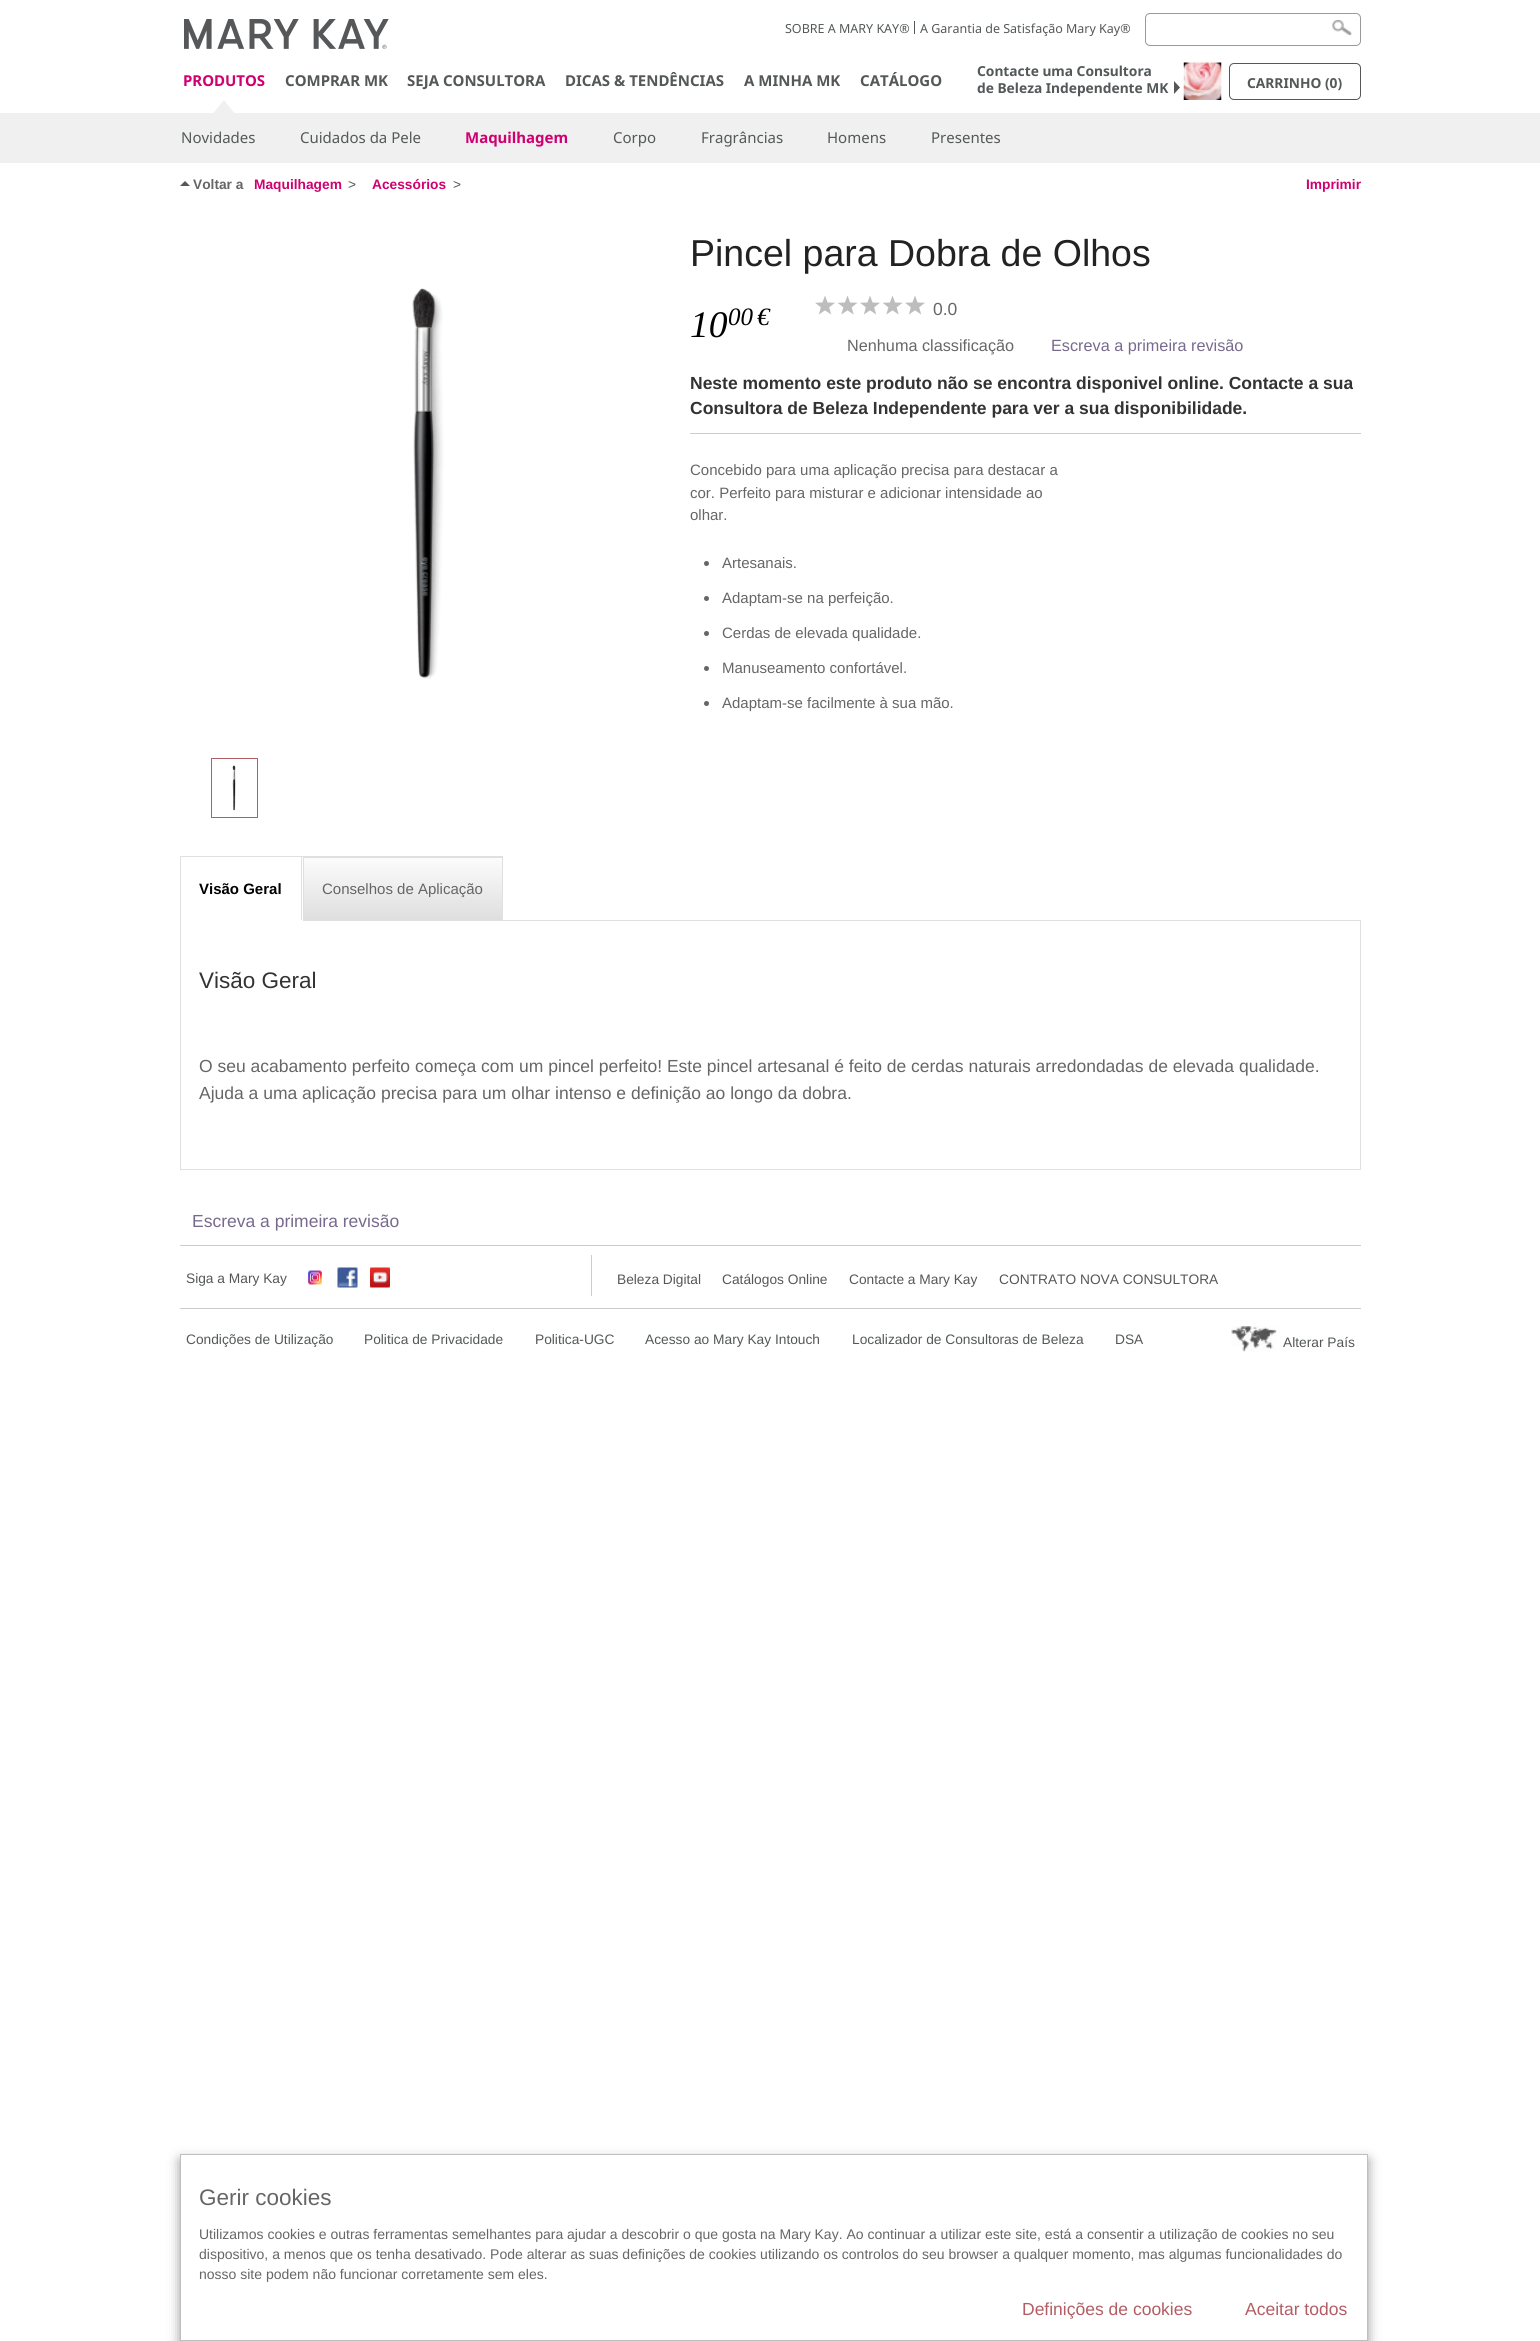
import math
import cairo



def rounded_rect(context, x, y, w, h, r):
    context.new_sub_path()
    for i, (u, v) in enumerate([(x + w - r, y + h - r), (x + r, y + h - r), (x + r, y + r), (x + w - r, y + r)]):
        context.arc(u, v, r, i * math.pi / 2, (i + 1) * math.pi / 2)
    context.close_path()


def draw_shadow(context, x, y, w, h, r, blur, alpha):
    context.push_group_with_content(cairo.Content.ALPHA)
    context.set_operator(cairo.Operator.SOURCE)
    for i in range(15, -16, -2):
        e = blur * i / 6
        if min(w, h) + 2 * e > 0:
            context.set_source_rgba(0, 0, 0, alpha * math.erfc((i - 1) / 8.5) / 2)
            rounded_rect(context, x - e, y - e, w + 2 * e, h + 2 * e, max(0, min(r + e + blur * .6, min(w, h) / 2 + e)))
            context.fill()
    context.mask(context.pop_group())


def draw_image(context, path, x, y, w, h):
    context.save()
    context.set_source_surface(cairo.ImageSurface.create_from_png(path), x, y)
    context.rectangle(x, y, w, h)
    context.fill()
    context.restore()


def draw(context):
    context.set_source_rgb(1, 1, 1)
    context.paint()
    context.set_source_rgb(84 / 255, 88 / 255, 89 / 255)
    context.rectangle(914, 21, 1, 13)
    context.fill()
    draw_image(context, "images/1.png", 1332, 20, 20, 15)
    context.set_source_rgba(1, 1, 1, 0.6)
    rounded_rect(context, 1145.5, 13.5, 215, 32, 4.5)
    context.fill_preserve()
    context.set_source_rgb(152 / 255, 155 / 255, 155 / 255)
    context.set_line_width(1)
    context.stroke()
    draw_image(context, "images/2.png", 184, 19, 205, 30)
    context.set_source_rgb(240 / 255, 240 / 255, 240 / 255)
    context.rectangle(0, 113, 1540, 50)
    context.fill()
    context.new_path()
    context.move_to(235, 114)
    context.line_to(212.5, 114)
    context.line_to(224, 100)
    context.close_path()
    context.fill()
    context.set_source_rgb(85 / 255, 87 / 255, 89 / 255)
    context.new_path()
    context.move_to(1174, 94)
    context.line_to(1174, 81)
    context.line_to(1180, 87.5)
    context.close_path()
    context.fill()
    draw_image(context, "images/3.png", 1183, 62, 39, 38)
    rounded_rect(context, 1229.5, 63.5, 131, 36, 4.5)
    context.set_source_rgb(84 / 255, 88 / 255, 89 / 255)
    context.stroke()
    context.set_source_rgb(85 / 255, 87 / 255, 89 / 255)
    context.new_path()
    context.move_to(190, 186)
    context.line_to(180, 186)
    context.line_to(185, 181)
    context.close_path()
    context.fill()
    draw_image(context, "images/4.png", 412, 288, 32, 391)
    context.rectangle(211.5, 758.5, 46, 59)
    context.set_source_rgb(178 / 255, 93 / 255, 100 / 255)
    context.stroke()
    draw_image(context, "images/5.png", 232, 765, 4, 46)
    context.set_source_rgb(204 / 255, 204 / 255, 204 / 255)
    context.rectangle(690, 433, 671, 1)
    context.fill()
    draw_image(context, "images/6.png", 815, 296, 20, 19)
    draw_image(context, "images/7.png", 838, 295, 20, 20)
    draw_image(context, "images/6.png", 860, 296, 20, 19)
    draw_image(context, "images/7.png", 883, 295, 20, 20)
    draw_image(context, "images/6.png", 905, 296, 20, 19)
    context.set_source_rgb(102 / 255, 102 / 255, 102 / 255)
    context.arc(706.5, 563.5, 2.5, 0, 2 * math.pi)
    context.fill()
    context.arc(706.5, 598.5, 2.5, 0, 2 * math.pi)
    context.fill()
    context.arc(706.5, 633.5, 2.5, 0, 2 * math.pi)
    context.fill()
    context.arc(706.5, 668.5, 2.5, 0, 2 * math.pi)
    context.fill()
    context.arc(706.5, 703.5, 2.5, 0, 2 * math.pi)
    context.fill()
    context.set_source_rgb(224 / 255, 224 / 255, 224 / 255)
    context.rectangle(180, 856, 123, 1)
    context.fill()
    context.rectangle(180.5, 920.5, 1180, 249)
    context.stroke()
    context.rectangle(301, 856, 1, 65)
    context.fill()
    context.set_source_rgb(1, 1, 1)
    context.rectangle(180, 920, 123, 1)
    context.fill()
    context.set_source_rgb(224 / 255, 224 / 255, 224 / 255)
    context.rectangle(180, 856, 1, 65)
    context.fill()
    context.set_source_rgb(222 / 255, 222 / 255, 222 / 255)
    context.rectangle(304, 857, 198, 1)
    context.fill()
    gradient = cairo.LinearGradient(403, 858, 403, 920)
    gradient.add_color_stop_rgba(0, 252 / 255, 252 / 255, 252 / 255, 1)
    gradient.add_color_stop_rgba(1, 222 / 255, 222 / 255, 222 / 255, 1)
    context.set_source(gradient)
    context.rectangle(304, 858, 198, 62)
    context.fill()
    context.rectangle(303.5, 856.5, 199, 64)
    context.set_source_rgb(224 / 255, 224 / 255, 224 / 255)
    context.stroke()
    context.set_source_rgb(204 / 255, 204 / 255, 204 / 255)
    context.rectangle(180, 1245, 1181, 1)
    context.fill()
    context.rectangle(180, 1308, 1181, 1)
    context.fill()
    context.rectangle(591, 1255, 1, 41)
    context.fill()
    draw_image(context, "images/8.png", 308, 1270, 14, 15)
    draw_image(context, "images/9.png", 337, 1267, 21, 21)
    draw_image(context, "images/10.png", 370, 1267, 20, 21)
    draw_image(context, "images/11.png", 1231, 1326, 46, 26)
    context.set_source_rgb(153 / 255, 153 / 255, 153 / 255)
    draw_shadow(context, 180, 2160, 1188, 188, 0, 6, 1)
    context.set_source_rgb(1, 1, 1)
    context.rectangle(180.5, 2154.5, 1187, 186)
    context.fill_preserve()
    context.set_source_rgb(191 / 255, 191 / 255, 191 / 255)
    context.stroke()
    context.select_font_face("Noto Sans")
    context.set_font_size(12.5)
    context.set_source_rgb(84 / 255, 88 / 255, 89 / 255)
    context.move_to(785, 33)
    context.show_text("SOBRE A MARY KAY®")
    context.move_to(920, 33)
    context.show_text("A Garantia de Satisfação Mary Kay®")
    context.select_font_face("Noto Sans", cairo.FontSlant.NORMAL, cairo.FontWeight.BOLD)
    context.set_font_size(15)
    context.set_source_rgb(208 / 255, 0, 112 / 255)
    context.move_to(183, 86)
    context.show_text("PRODUTOS")
    context.set_source_rgb(84 / 255, 88 / 255, 89 / 255)
    context.move_to(285, 86)
    context.show_text("COMPRAR MK")
    context.move_to(407, 86)
    context.show_text("SEJA CONSULTORA")
    context.move_to(565, 86)
    context.show_text("DICAS & TENDÊNCIAS")
    context.move_to(744, 86)
    context.show_text("A MINHA MK")
    context.move_to(860, 86)
    context.show_text("CATÁLOGO")
    context.set_font_size(13.75)
    context.move_to(977, 76)
    context.show_text("Contacte uma Consultora")
    context.move_to(977, 93)
    context.show_text("de Beleza Independente MK")
    context.move_to(1247, 88)
    context.show_text("CARRINHO (0)")
    context.select_font_face("Noto Sans")
    context.set_font_size(15)
    context.move_to(181, 143)
    context.show_text("Novidades")
    context.move_to(300, 143)
    context.show_text("Cuidados da Pele")
    context.select_font_face("Noto Sans", cairo.FontSlant.NORMAL, cairo.FontWeight.BOLD)
    context.set_source_rgb(208 / 255, 0, 112 / 255)
    context.move_to(465, 143)
    context.show_text("Maquilhagem")
    context.select_font_face("Noto Sans")
    context.set_source_rgb(84 / 255, 88 / 255, 89 / 255)
    context.move_to(613, 143)
    context.show_text("Corpo")
    context.move_to(701, 143)
    context.show_text("Fragrâncias")
    context.move_to(827, 143)
    context.show_text("Homens")
    context.move_to(931, 143)
    context.show_text("Presentes")
    context.select_font_face("Liberation Sans", cairo.FontSlant.NORMAL, cairo.FontWeight.BOLD)
    context.set_font_size(13.75)
    context.set_source_rgb(102 / 255, 102 / 255, 102 / 255)
    context.move_to(193, 189)
    context.show_text("Voltar a")
    context.set_source_rgb(208 / 255, 0, 112 / 255)
    context.move_to(254, 189)
    context.show_text("Maquilhagem")
    context.select_font_face("Liberation Sans")
    context.set_source_rgb(84 / 255, 88 / 255, 89 / 255)
    context.move_to(348, 189)
    context.show_text(">")
    context.select_font_face("Liberation Sans", cairo.FontSlant.NORMAL, cairo.FontWeight.BOLD)
    context.set_source_rgb(208 / 255, 0, 112 / 255)
    context.move_to(372, 189)
    context.show_text("Acessórios")
    context.select_font_face("Liberation Sans")
    context.set_source_rgb(84 / 255, 88 / 255, 89 / 255)
    context.move_to(453, 189)
    context.show_text(">")
    context.select_font_face("Liberation Sans", cairo.FontSlant.NORMAL, cairo.FontWeight.BOLD)
    context.set_source_rgb(208 / 255, 0, 112 / 255)
    context.move_to(1306, 189)
    context.show_text("Imprimir")
    context.select_font_face("Liberation Sans")
    context.set_font_size(37.5)
    context.set_source_rgb(34 / 255, 34 / 255, 34 / 255)
    context.move_to(690, 266)
    context.show_text("Pincel para Dobra de Olhos")
    context.select_font_face("Liberation Serif", cairo.FontSlant.ITALIC)
    context.set_source_rgb(0, 0, 0)
    context.move_to(690, 337)
    context.show_text("10")
    context.set_font_size(25)
    context.move_to(728, 325)
    context.show_text("00")
    context.move_to(757, 325)
    context.show_text("€")
    context.select_font_face("Liberation Sans")
    context.set_font_size(17.5)
    context.set_source_rgb(102 / 255, 102 / 255, 102 / 255)
    context.move_to(933, 315)
    context.show_text("0.0")
    context.set_font_size(16.25)
    context.move_to(847, 351)
    context.show_text("Nenhuma classificação")
    context.set_source_rgb(119 / 255, 106 / 255, 141 / 255)
    context.move_to(1051, 351)
    context.show_text("Escreva a primeira revisão")
    context.select_font_face("Liberation Sans", cairo.FontSlant.NORMAL, cairo.FontWeight.BOLD)
    context.set_font_size(17.5)
    context.set_source_rgb(51 / 255, 51 / 255, 51 / 255)
    context.move_to(690, 389)
    context.show_text("Neste momento este produto não se encontra disponivel online. Contacte a sua")
    context.move_to(690, 414)
    context.show_text("Consultora de Beleza Independente para ver a sua disponibilidade.")
    context.select_font_face("Liberation Sans")
    context.set_font_size(15)
    context.set_source_rgb(102 / 255, 102 / 255, 102 / 255)
    context.move_to(690, 475)
    context.show_text("Concebido para uma aplicação precisa para destacar a")
    context.move_to(690, 498)
    context.show_text("cor. Perfeito para misturar e adicionar intensidade ao")
    context.move_to(690, 520)
    context.show_text("olhar.")
    context.move_to(722, 568)
    context.show_text("Artesanais.")
    context.move_to(722, 603)
    context.show_text("Adaptam-se na perfeição.")
    context.move_to(722, 638)
    context.show_text("Cerdas de elevada qualidade.")
    context.move_to(722, 673)
    context.show_text("Manuseamento confortável.")
    context.move_to(722, 708)
    context.show_text("Adaptam-se facilmente à sua mão.")
    context.select_font_face("Liberation Sans", cairo.FontSlant.NORMAL, cairo.FontWeight.BOLD)
    context.set_source_rgb(0, 0, 0)
    context.move_to(199, 894)
    context.show_text("Visão Geral")
    context.select_font_face("Liberation Sans")
    context.set_source_rgb(102 / 255, 102 / 255, 102 / 255)
    context.move_to(322, 894)
    context.show_text("Conselhos de Aplicação")
    context.set_font_size(22.5)
    context.set_source_rgb(51 / 255, 51 / 255, 51 / 255)
    context.move_to(199, 988)
    context.show_text("Visão Geral")
    context.set_font_size(17.5)
    context.set_source_rgb(102 / 255, 102 / 255, 102 / 255)
    context.move_to(199, 1072)
    context.show_text("O seu acabamento perfeito começa com um pincel perfeito! Este pincel artesanal é feito de cerdas naturais arredondadas de elevada qualidade.")
    context.move_to(199, 1099)
    context.show_text("Ajuda a uma aplicação precisa para um olhar intenso e definição ao longo da dobra.")
    context.set_source_rgb(119 / 255, 106 / 255, 141 / 255)
    context.move_to(192, 1227)
    context.show_text("Escreva a primeira revisão")
    context.set_font_size(13.75)
    context.set_source_rgb(84 / 255, 88 / 255, 89 / 255)
    context.move_to(186, 1283)
    context.show_text("Siga a Mary Kay")
    context.move_to(617, 1284)
    context.show_text("Beleza Digital")
    context.move_to(722, 1284)
    context.show_text("Catálogos Online")
    context.move_to(849, 1284)
    context.show_text("Contacte a Mary Kay")
    context.move_to(999, 1284)
    context.show_text("CONTRATO NOVA CONSULTORA")
    context.move_to(186, 1344)
    context.show_text("Condições de Utilização")
    context.move_to(364, 1344)
    context.show_text("Politica de Privacidade")
    context.move_to(535, 1344)
    context.show_text("Politica-UGC")
    context.move_to(645, 1344)
    context.show_text("Acesso ao Mary Kay Intouch")
    context.move_to(852, 1344)
    context.show_text("Localizador de Consultoras de Beleza")
    context.move_to(1115, 1344)
    context.show_text("DSA")
    context.move_to(1283, 1347)
    context.show_text("Alterar País")
    context.set_font_size(22.5)
    context.set_source_rgb(102 / 255, 102 / 255, 102 / 255)
    context.move_to(199, 2205)
    context.show_text("Gerir cookies")
    context.set_font_size(14)
    context.move_to(199, 2239)
    context.show_text("Utilizamos cookies e outras ferramentas semelhantes para ajudar a descobrir o que gosta na Mary Kay. Ao continuar a utilizar este site, está a consentir a utilização de cookies no seu")
    context.move_to(199, 2259)
    context.show_text("dispositivo, a menos que os tenha desativado. Pode alterar as suas definições de cookies utilizando os controlos do seu browser a qualquer momento, mas algumas funcionalidades do")
    context.move_to(199, 2279)
    context.show_text("nosso site podem não funcionar corretamente sem eles.")
    context.set_font_size(17.5)
    context.set_source_rgb(178 / 255, 93 / 255, 100 / 255)
    context.move_to(1022, 2315)
    context.show_text("Definições de cookies")
    context.move_to(1245, 2315)
    context.show_text("Aceitar todos")


surface = cairo.ImageSurface(cairo.Format.RGB24, 1540, 2341)
context = cairo.Context(surface)
options = cairo.FontOptions()
options.set_hint_metrics(cairo.HintMetrics.OFF)
options.set_hint_style(cairo.HintStyle.NONE)
context.set_font_options(options)
context.set_miter_limit(4)
draw(context)
surface.write_to_png("out.png")
